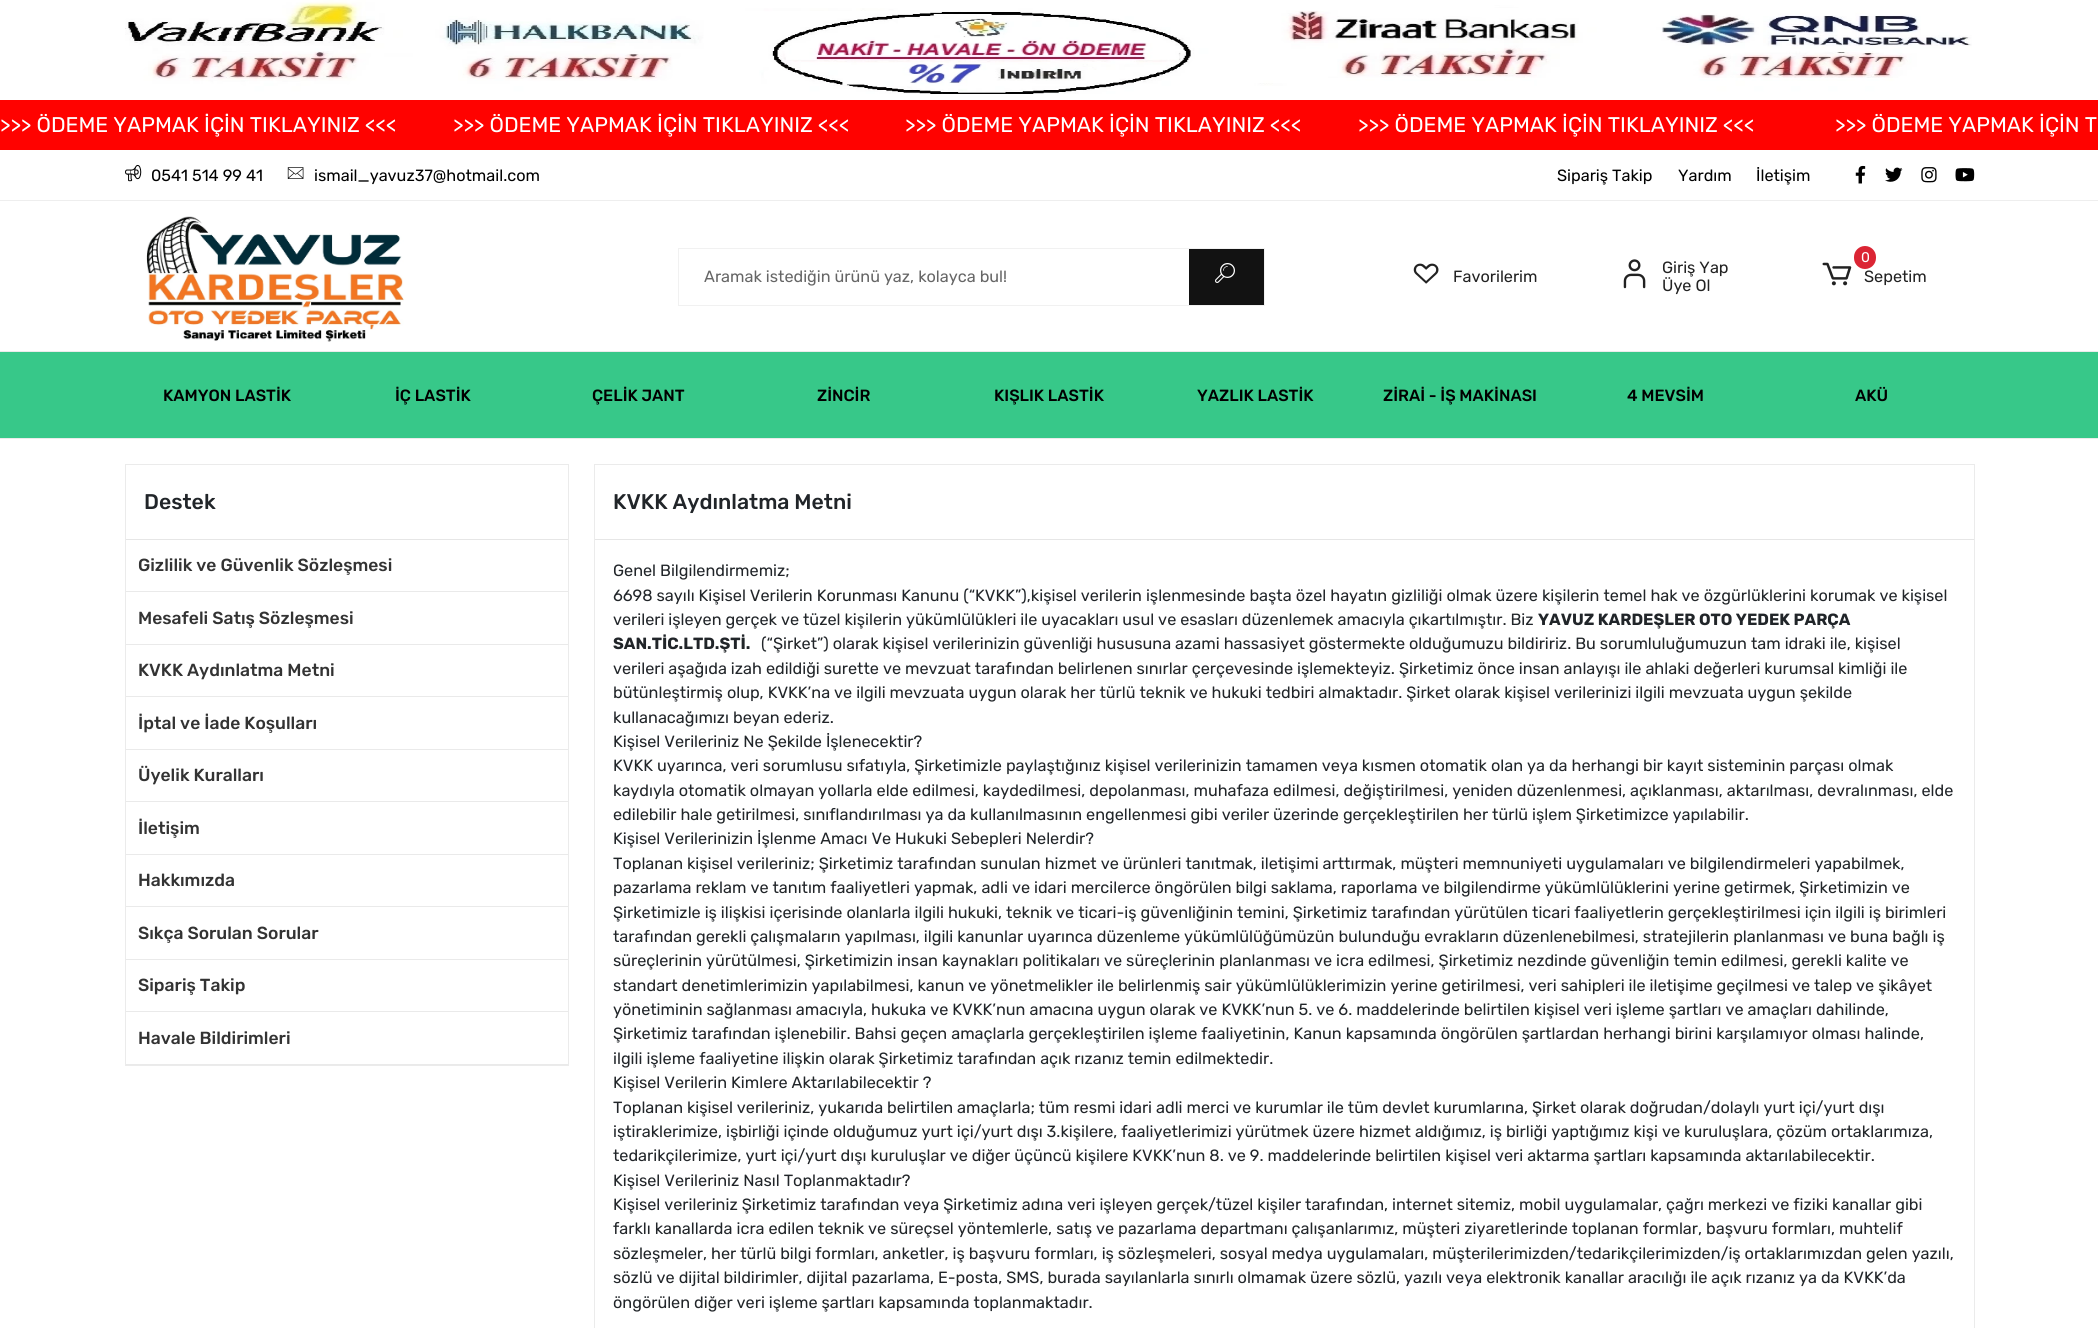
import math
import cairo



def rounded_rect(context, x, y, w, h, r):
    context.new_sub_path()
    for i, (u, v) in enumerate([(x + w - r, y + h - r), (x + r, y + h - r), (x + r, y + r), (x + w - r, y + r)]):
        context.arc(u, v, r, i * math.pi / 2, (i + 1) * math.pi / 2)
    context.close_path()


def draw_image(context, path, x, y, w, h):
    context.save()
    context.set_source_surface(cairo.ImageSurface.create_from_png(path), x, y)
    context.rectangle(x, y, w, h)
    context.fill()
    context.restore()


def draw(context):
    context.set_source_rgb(1, 1, 1)
    context.paint()
    draw_image(context, "images/1.png", 125, 0, 1847, 94)
    context.set_source_rgb(1, 2 / 255, 0)
    context.rectangle(0, 100, 2098, 50)
    context.fill()
    context.set_source_rgb(238 / 255, 238 / 255, 238 / 255)
    context.rectangle(0, 200, 2098, 1)
    context.fill()
    draw_image(context, "images/2.png", 125, 164, 17, 18)
    draw_image(context, "images/3.png", 287, 167, 17, 12)
    draw_image(context, "images/4.png", 1855, 165, 11, 19)
    draw_image(context, "images/5.png", 1885, 167, 18, 15)
    draw_image(context, "images/6.png", 1921, 167, 16, 16)
    draw_image(context, "images/7.png", 1955, 168, 20, 14)
    draw_image(context, "images/8.png", 146, 216, 258, 126)
    context.rectangle(678.5, 248.5, 586, 57)
    context.set_source_rgb(241 / 255, 241 / 255, 241 / 255)
    context.set_line_width(1)
    context.stroke()
    context.set_source_rgb(18 / 255, 18 / 255, 18 / 255)
    context.rectangle(1189, 249, 75, 56)
    context.fill()
    draw_image(context, "images/9.png", 1215, 263, 20, 20)
    draw_image(context, "images/10.png", 1413, 263, 26, 21)
    draw_image(context, "images/11.png", 1623, 259, 23, 30)
    context.set_source_rgb(219 / 255, 37 / 255, 52 / 255)
    rounded_rect(context, 1854, 246, 22, 23, 11)
    context.fill()
    draw_image(context, "images/12.png", 1822, 262, 30, 24)
    context.set_source_rgb(55 / 255, 200 / 255, 137 / 255)
    context.rectangle(0, 352, 2098, 86)
    context.fill()
    context.set_source_rgb(235 / 255, 235 / 255, 235 / 255)
    context.rectangle(0, 351, 2098, 1)
    context.fill()
    context.rectangle(0, 438, 2098, 1)
    context.fill()
    context.rectangle(125.5, 464.5, 443, 601)
    context.stroke()
    context.set_source_rgb(230 / 255, 230 / 255, 230 / 255)
    context.rectangle(126, 539, 442, 1)
    context.fill()
    context.set_source_rgb(234 / 255, 234 / 255, 234 / 255)
    context.rectangle(126, 591, 442, 1)
    context.fill()
    context.rectangle(126, 644, 442, 1)
    context.fill()
    context.rectangle(126, 696, 442, 1)
    context.fill()
    context.rectangle(126, 749, 442, 1)
    context.fill()
    context.rectangle(126, 801, 442, 1)
    context.fill()
    context.rectangle(126, 854, 442, 1)
    context.fill()
    context.rectangle(126, 906, 442, 1)
    context.fill()
    context.rectangle(126, 959, 442, 1)
    context.fill()
    context.rectangle(126, 1011, 442, 1)
    context.fill()
    context.rectangle(126, 1064, 442, 1)
    context.fill()
    context.rectangle(594.5, 464.5, 1380, 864)
    context.set_source_rgb(235 / 255, 235 / 255, 235 / 255)
    context.stroke()
    context.set_source_rgb(230 / 255, 230 / 255, 230 / 255)
    context.rectangle(595, 539, 1379, 1)
    context.fill()
    context.select_font_face("Rubik")
    context.set_font_size(21.25)
    context.set_source_rgb(1, 1, 1)
    context.move_to(0, 132)
    context.show_text(">>> ÖDEME YAPMAK İÇİN TIKLAYINIZ <<<")
    context.move_to(453, 132)
    context.show_text(">>> ÖDEME YAPMAK İÇİN TIKLAYINIZ <<<")
    context.move_to(905, 132)
    context.show_text(">>> ÖDEME YAPMAK İÇİN TIKLAYINIZ <<<")
    context.move_to(1358, 132)
    context.show_text(">>> ÖDEME YAPMAK İÇİN TIKLAYINIZ <<<")
    context.move_to(1835, 132)
    context.show_text(">>> ÖDEME YAPMAK İÇİN T")
    context.set_font_size(16.25)
    context.set_source_rgb(0, 0, 0)
    context.move_to(151, 181)
    context.show_text("0541 514 99 41")
    context.move_to(314, 181)
    context.show_text("ismail_yavuz37@hotmail.com")
    context.move_to(1557, 181)
    context.show_text("Sipariş Takip")
    context.move_to(1678, 181)
    context.show_text("Yardım")
    context.move_to(1756, 181)
    context.show_text("İletişim")
    context.set_source_rgb(102 / 255, 102 / 255, 102 / 255)
    context.move_to(704, 282)
    context.show_text("Aramak istediğin ürünü yaz, kolayca bul!")
    context.set_source_rgb(34 / 255, 34 / 255, 34 / 255)
    context.move_to(1453, 282)
    context.show_text("Favorilerim")
    context.move_to(1662, 273)
    context.show_text("Giriş Yap")
    context.move_to(1662, 291)
    context.show_text("Üye Ol")
    context.set_font_size(14)
    context.set_source_rgb(1, 1, 1)
    context.move_to(1861, 262)
    context.show_text("0")
    context.set_font_size(16.25)
    context.set_source_rgb(34 / 255, 34 / 255, 34 / 255)
    context.move_to(1864, 282)
    context.show_text("Sepetim")
    context.select_font_face("Rubik Medium")
    context.set_source_rgb(0, 0, 0)
    context.move_to(163, 401)
    context.show_text("KAMYON LASTİK")
    context.move_to(395, 401)
    context.show_text("İÇ LASTİK")
    context.move_to(592, 401)
    context.show_text("ÇELİK JANT")
    context.move_to(817, 401)
    context.show_text("ZİNCİR")
    context.move_to(994, 401)
    context.show_text("KIŞLIK LASTİK")
    context.move_to(1197, 401)
    context.show_text("YAZLIK LASTİK")
    context.move_to(1383, 401)
    context.show_text("ZİRAİ - İŞ MAKİNASI")
    context.move_to(1627, 401)
    context.show_text("4 MEVSİM")
    context.move_to(1855, 401)
    context.show_text("AKÜ")
    context.set_font_size(21.25)
    context.set_source_rgb(33 / 255, 37 / 255, 41 / 255)
    context.move_to(144, 509)
    context.show_text("Destek")
    context.set_font_size(17.5)
    context.set_source_rgb(51 / 255, 51 / 255, 51 / 255)
    context.move_to(138, 571)
    context.show_text("Gizlilik ve Güvenlik Sözleşmesi")
    context.move_to(138, 624)
    context.show_text("Mesafeli Satış Sözleşmesi")
    context.move_to(138, 676)
    context.show_text("KVKK Aydınlatma Metni")
    context.move_to(138, 729)
    context.show_text("İptal ve İade Koşulları")
    context.move_to(138, 781)
    context.show_text("Üyelik Kuralları")
    context.move_to(138, 834)
    context.show_text("İletişim")
    context.move_to(138, 886)
    context.show_text("Hakkımızda")
    context.move_to(138, 939)
    context.show_text("Sıkça Sorulan Sorular")
    context.move_to(138, 991)
    context.show_text("Sipariş Takip")
    context.move_to(138, 1044)
    context.show_text("Havale Bildirimleri")
    context.set_font_size(21.25)
    context.set_source_rgb(33 / 255, 37 / 255, 41 / 255)
    context.move_to(613, 509)
    context.show_text("KVKK Aydınlatma Metni")
    context.select_font_face("Rubik")
    context.set_font_size(16.25)
    context.move_to(613, 576)
    context.show_text("Genel Bilgilendirmemiz;")
    context.move_to(613, 601)
    context.show_text("6698 sayılı Kişisel Verilerin Korunması Kanunu (“KVKK”),kişisel verilerin işlenmesinde başta özel hayatın gizliliği olmak üzere kişilerin temel hak ve özgürlüklerini korumak ve kişisel")
    context.move_to(613, 625)
    context.show_text("verileri işleyen gerçek ve tüzel kişilerin yükümlülükleri ile uyacakları usul ve esasları düzenlemek amacıyla çıkartılmıştır. Biz")
    context.select_font_face("Rubik", cairo.FontSlant.NORMAL, cairo.FontWeight.BOLD)
    context.move_to(1538, 625)
    context.show_text("YAVUZ KARDEŞLER OTO YEDEK PARÇA")
    context.move_to(613, 649)
    context.show_text("SAN.TİC.LTD.ŞTİ.")
    context.select_font_face("Rubik")
    context.move_to(761, 649)
    context.show_text("(“Şirket”) olarak kişisel verilerinizin güvenliği hususuna azami hassasiyet göstermekte olduğumuzu bildiririz. Bu sorumluluğumuzun tam idraki ile, kişisel")
    context.move_to(613, 674)
    context.show_text("verileri aşağıda izah edildiği surette ve mevzuat tarafından belirlenen sınırlar çerçevesinde işlemekteyiz. Şirketimiz önce insan anlayışı ile ahlaki değerleri kurumsal kimliği ile")
    context.move_to(613, 698)
    context.show_text("bütünleştirmiş olup, KVKK’na ve ilgili mevzuata uygun olarak her türlü teknik ve hukuki tedbiri almaktadır. Şirket olarak kişisel verilerinizi ilgili mevzuata uygun şekilde")
    context.move_to(613, 723)
    context.show_text("kullanacağımızı beyan ederiz.")
    context.move_to(613, 747)
    context.show_text("Kişisel Verileriniz Ne Şekilde İşlenecektir?")
    context.move_to(613, 771)
    context.show_text("KVKK uyarınca, veri sorumlusu sıfatıyla, Şirketimizle paylaştığınız kişisel verilerinizin tamamen veya kısmen otomatik olan ya da herhangi bir kayıt sisteminin parçası olmak")
    context.move_to(613, 796)
    context.show_text("kaydıyla otomatik olmayan yollarla elde edilmesi, kaydedilmesi, depolanması, muhafaza edilmesi, değiştirilmesi, yeniden düzenlenmesi, açıklanması, aktarılması, devralınması, elde")
    context.move_to(613, 820)
    context.show_text("edilebilir hale getirilmesi, sınıflandırılması ya da kullanılmasının engellenmesi gibi veriler üzerinde gerçekleştirilen her türlü işlem Şirketimizce yapılabilir.")
    context.move_to(613, 844)
    context.show_text("Kişisel Verilerinizin İşlenme Amacı Ve Hukuki Sebepleri Nelerdir?")
    context.move_to(613, 869)
    context.show_text("Toplanan kişisel verileriniz; Şirketimiz tarafından sunulan hizmet ve ürünleri tanıtmak, iletişimi arttırmak, müşteri memnuniyeti uygulamaları ve bilgilendirmeleri yapabilmek,")
    context.move_to(613, 893)
    context.show_text("pazarlama reklam ve tanıtım faaliyetleri yapmak, adli ve idari mercilerce öngörülen bilgi saklama, raporlama ve bilgilendirme yükümlülüklerini yerine getirmek, Şirketimizin ve")
    context.move_to(613, 918)
    context.show_text("Şirketimizle iş ilişkisi içerisinde olanlarla ilgili hukuki, teknik ve ticari-iş güvenliğinin temini, Şirketimiz tarafından yürütülen ticari faaliyetlerin gerçekleştirilmesi için ilgili iş birimleri")
    context.move_to(613, 942)
    context.show_text("tarafından gerekli çalışmaların yapılması, ilgili kanunlar uyarınca düzenleme yükümlülüğümüzün bulunduğu evrakların düzenlenebilmesi, stratejilerin planlanması ve buna bağlı iş")
    context.move_to(613, 966)
    context.show_text("süreçlerinin yürütülmesi, Şirketimizin insan kaynakları politikaları ve süreçlerinin planlanması ve icra edilmesi, Şirketimiz nezdinde güvenliğin temin edilmesi, gerekli kalite ve")
    context.move_to(613, 991)
    context.show_text("standart denetimlerimizin yapılabilmesi, kanun ve yönetmelikler ile belirlenmiş sair yükümlülüklerimizin yerine getirilmesi, veri sahipleri ile iletişime geçilmesi ve talep ve şikâyet")
    context.move_to(613, 1015)
    context.show_text("yönetiminin sağlanması amacıyla, hukuka ve KVKK’nun amacına uygun olarak ve KVKK’nun 5. ve 6. maddelerinde belirtilen kişisel veri işleme şartları ve amaçları dahilinde,")
    context.move_to(613, 1039)
    context.show_text("Şirketimiz tarafından işlenebilir. Bahsi geçen amaçlarla gerçekleştirilen işleme faaliyetinin, Kanun kapsamında öngörülen şartlardan herhangi birini karşılamıyor olması halinde,")
    context.move_to(613, 1064)
    context.show_text("ilgili işleme faaliyetine ilişkin olarak Şirketimiz tarafından açık rızanız temin edilmektedir.")
    context.move_to(613, 1088)
    context.show_text("Kişisel Verilerin Kimlere Aktarılabilecektir ?")
    context.move_to(613, 1113)
    context.show_text("Toplanan kişisel verileriniz, yukarıda belirtilen amaçlarla; tüm resmi idari adli merci ve kurumlar ile tüm devlet kurumlarına, Şirket olarak doğrudan/dolaylı yurt içi/yurt dışı")
    context.move_to(613, 1137)
    context.show_text("iştiraklerimize, işbirliği içinde olduğumuz yurt içi/yurt dışı 3.kişilere, faaliyetlerimizi yürütmek üzere hizmet aldığımız, iş birliği yaptığımız kişi ve kuruluşlara, çözüm ortaklarımıza,")
    context.move_to(613, 1161)
    context.show_text("tedarikçilerimize, yurt içi/yurt dışı kuruluşlar ve diğer üçüncü kişilere KVKK’nun 8. ve 9. maddelerinde belirtilen kişisel veri aktarma şartları kapsamında aktarılabilecektir.")
    context.move_to(613, 1186)
    context.show_text("Kişisel Verileriniz Nasıl Toplanmaktadır?")
    context.move_to(613, 1210)
    context.show_text("Kişisel verileriniz Şirketimiz tarafından veya Şirketimiz adına veri işleyen gerçek/tüzel kişiler tarafından, internet sitemiz, mobil uygulamalar, çağrı merkezi ve fiziki kanallar gibi")
    context.move_to(613, 1234)
    context.show_text("farklı kanallarda icra edilen teknik ve süreçsel yöntemlerle, satış ve pazarlama departmanı çalışanlarımız, müşteri ziyaretlerinde toplanan formlar, başvuru formları, muhtelif")
    context.move_to(613, 1259)
    context.show_text("sözleşmeler, her türlü bilgi formları, anketler, iş başvuru formları, iş sözleşmeleri, sosyal medya uygulamaları, müşterilerimizden/tedarikçilerimizden/iş ortaklarımızdan gelen yazılı,")
    context.move_to(613, 1283)
    context.show_text("sözlü ve dijital bildirimler, dijital pazarlama, E-posta, SMS, burada sayılanlarla sınırlı olmamak üzere sözlü, yazılı veya elektronik kanallar aracılığı ile açık rızanız ya da KVKK’da")
    context.move_to(613, 1308)
    context.show_text("öngörülen diğer veri işleme şartları kapsamında toplanmaktadır.")


surface = cairo.ImageSurface(cairo.Format.RGB24, 2098, 1328)
context = cairo.Context(surface)
options = cairo.FontOptions()
options.set_hint_metrics(cairo.HintMetrics.OFF)
options.set_hint_style(cairo.HintStyle.NONE)
context.set_font_options(options)
context.set_miter_limit(4)
draw(context)
surface.write_to_png("out.png")
